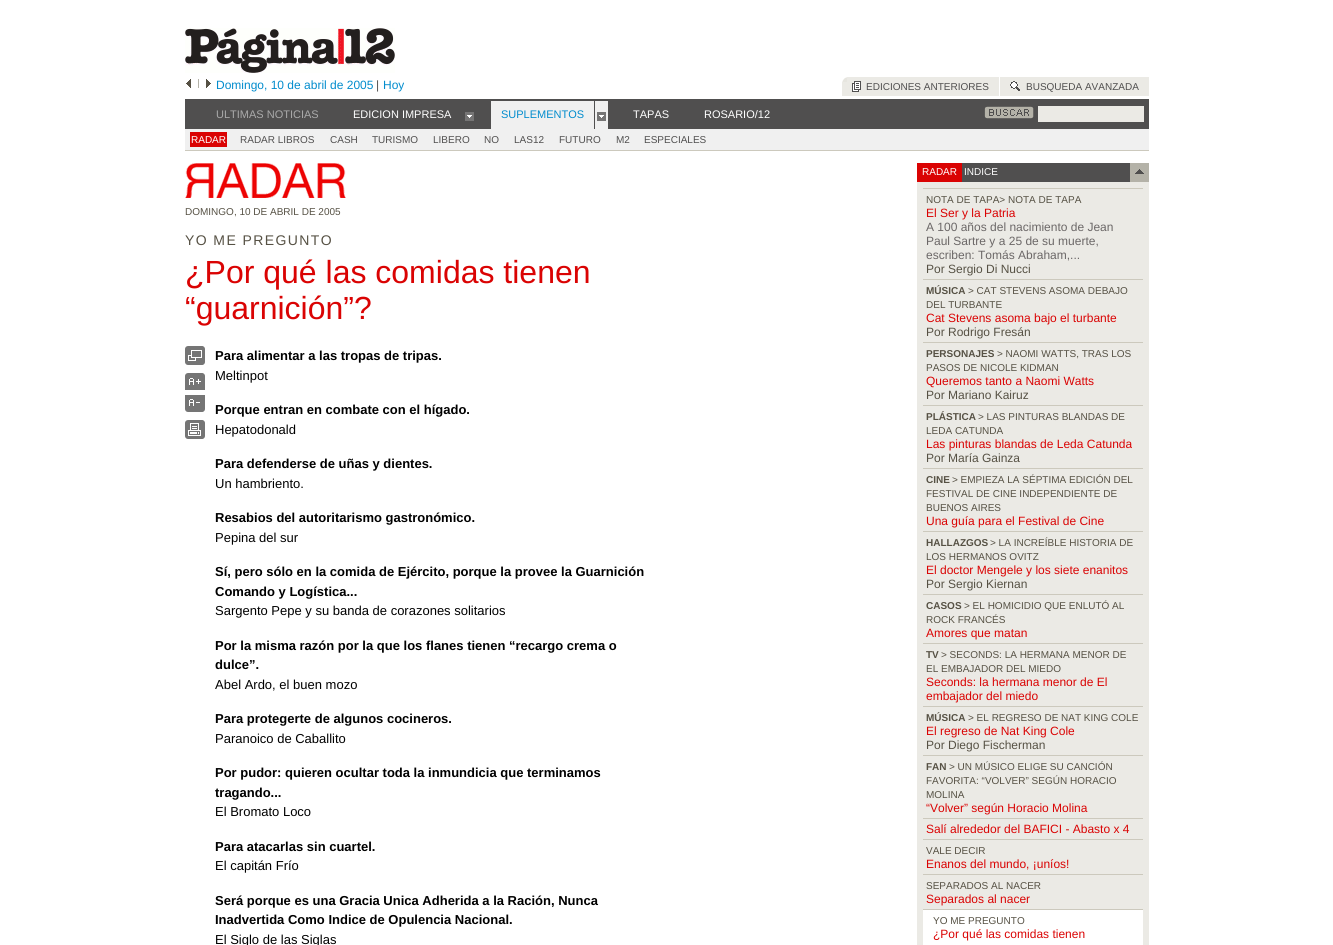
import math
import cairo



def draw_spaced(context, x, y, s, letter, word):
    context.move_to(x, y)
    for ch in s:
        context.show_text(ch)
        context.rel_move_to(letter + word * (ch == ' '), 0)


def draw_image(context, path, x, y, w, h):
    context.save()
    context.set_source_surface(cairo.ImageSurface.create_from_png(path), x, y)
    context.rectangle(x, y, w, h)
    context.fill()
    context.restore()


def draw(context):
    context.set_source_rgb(1, 1, 1)
    context.paint()
    draw_image(context, "images/1.png", 185, 28, 210, 45)
    draw_image(context, "images/2.png", 186, 79, 5, 9)
    context.set_source_rgb(180 / 255, 178 / 255, 168 / 255)
    context.rectangle(198, 79, 1, 9)
    context.fill()
    draw_image(context, "images/3.png", 206, 79, 5, 9)
    context.set_source_rgb(235 / 255, 234 / 255, 229 / 255)
    context.rectangle(842, 77, 157, 19)
    context.fill()
    draw_image(context, "images/4.png", 842, 77, 5, 5)
    draw_image(context, "images/5.png", 852, 81, 9, 11)
    context.rectangle(1000, 77, 149, 19)
    context.fill()
    draw_image(context, "images/6.png", 1010, 81, 10, 10)
    context.set_source_rgb(80 / 255, 79 / 255, 79 / 255)
    context.rectangle(185, 99, 964, 30)
    context.fill()
    draw_image(context, "images/7.png", 465, 112, 9, 9)
    context.set_source_rgb(240 / 255, 240 / 255, 240 / 255)
    context.rectangle(491, 101, 103, 28)
    context.fill()
    context.rectangle(595, 101, 13, 28)
    context.fill()
    draw_image(context, "images/7.png", 597, 112, 9, 9)
    draw_image(context, "images/8.png", 984, 106, 50, 13)
    context.set_source_rgb(235 / 255, 234 / 255, 229 / 255)
    context.rectangle(1038, 106, 106, 16)
    context.fill()
    context.set_source_rgb(240 / 255, 240 / 255, 240 / 255)
    context.rectangle(185, 129, 964, 21)
    context.fill()
    context.set_source_rgb(204 / 255, 201 / 255, 189 / 255)
    context.rectangle(185, 150, 964, 1)
    context.fill()
    context.set_source_rgb(218 / 255, 3 / 255, 3 / 255)
    context.rectangle(190, 132, 37, 15)
    context.fill()
    draw_image(context, "images/9.png", 185, 163, 161, 35)
    draw_image(context, "images/10.png", 185, 346, 20, 19)
    draw_image(context, "images/11.png", 185, 373, 20, 17)
    draw_image(context, "images/12.png", 185, 395, 20, 17)
    draw_image(context, "images/13.png", 185, 420, 20, 19)
    context.rectangle(917, 163, 45, 19)
    context.fill()
    context.set_source_rgb(80 / 255, 79 / 255, 79 / 255)
    context.rectangle(962, 163, 168, 19)
    context.fill()
    draw_image(context, "images/14.png", 1130, 163, 19, 19)
    context.set_source_rgb(235 / 255, 234 / 255, 229 / 255)
    context.rectangle(917, 182, 232, 763)
    context.fill()
    context.set_source_rgb(204 / 255, 201 / 255, 189 / 255)
    context.rectangle(923, 188, 220, 1)
    context.fill()
    context.rectangle(923, 279, 220, 1)
    context.fill()
    context.rectangle(923, 342, 220, 1)
    context.fill()
    context.rectangle(923, 405, 220, 1)
    context.fill()
    context.rectangle(923, 468, 220, 1)
    context.fill()
    context.rectangle(923, 531, 220, 1)
    context.fill()
    context.rectangle(923, 594, 220, 1)
    context.fill()
    context.rectangle(923, 643, 220, 1)
    context.fill()
    context.rectangle(923, 706, 220, 1)
    context.fill()
    context.rectangle(923, 755, 220, 1)
    context.fill()
    context.rectangle(923, 818, 220, 1)
    context.fill()
    context.rectangle(923, 839, 220, 1)
    context.fill()
    context.rectangle(923, 874, 220, 1)
    context.fill()
    context.set_source_rgb(1, 1, 1)
    context.rectangle(923, 910, 220, 35)
    context.fill()
    context.set_source_rgb(204 / 255, 201 / 255, 189 / 255)
    context.rectangle(923, 909, 220, 1)
    context.fill()
    context.select_font_face("Liberation Sans")
    context.set_font_size(12)
    context.set_source_rgb(2 / 255, 140 / 255, 205 / 255)
    context.move_to(216, 89)
    context.show_text("Domingo, 10 de abril de 2005")
    context.set_source_rgb(80 / 255, 79 / 255, 79 / 255)
    context.move_to(376, 89)
    context.show_text("|")
    context.set_source_rgb(2 / 255, 140 / 255, 205 / 255)
    context.move_to(383, 89)
    context.show_text("Hoy")
    context.set_font_size(10)
    context.set_source_rgb(80 / 255, 79 / 255, 79 / 255)
    context.move_to(866, 90)
    context.show_text("EDICIONES ANTERIORES")
    context.move_to(1026, 90)
    context.show_text("BUSQUEDA AVANZADA")
    context.set_font_size(11)
    context.set_source_rgb(170 / 255, 170 / 255, 170 / 255)
    context.move_to(216, 118)
    context.show_text("ULTIMAS NOTICIAS")
    context.set_source_rgb(1, 1, 1)
    context.move_to(353, 118)
    context.show_text("EDICION IMPRESA")
    context.set_source_rgb(2 / 255, 140 / 255, 205 / 255)
    context.move_to(501, 118)
    context.show_text("SUPLEMENTOS")
    context.set_source_rgb(1, 1, 1)
    context.move_to(633, 118)
    context.show_text("TAPAS")
    context.move_to(704, 118)
    context.show_text("ROSARIO/12")
    context.set_font_size(10)
    context.move_to(191, 143)
    context.show_text("RADAR")
    context.set_source_rgb(80 / 255, 79 / 255, 79 / 255)
    context.move_to(240, 143)
    context.show_text("RADAR LIBROS")
    context.move_to(330, 143)
    context.show_text("CASH")
    context.move_to(372, 143)
    context.show_text("TURISMO")
    context.move_to(433, 143)
    context.show_text("LIBERO")
    context.move_to(484, 143)
    context.show_text("NO")
    context.move_to(514, 143)
    context.show_text("LAS12")
    context.move_to(559, 143)
    context.show_text("FUTURO")
    context.move_to(616, 143)
    context.show_text("M2")
    context.move_to(644, 143)
    context.show_text("ESPECIALES")
    context.set_source_rgb(86 / 255, 81 / 255, 68 / 255)
    context.move_to(185, 215)
    context.show_text("DOMINGO, 10 DE ABRIL DE 2005")
    context.set_font_size(14)
    draw_spaced(context, 185, 245, "YO ME PREGUNTO", 1.4, 0)
    context.set_font_size(32)
    context.set_source_rgb(218 / 255, 3 / 255, 3 / 255)
    context.move_to(185, 283)
    context.show_text("¿Por qué las comidas tienen")
    context.move_to(185, 319)
    context.show_text("“guarnición”?")
    context.select_font_face("Liberation Sans", cairo.FontSlant.NORMAL, cairo.FontWeight.BOLD)
    context.set_font_size(13)
    context.set_source_rgb(0, 0, 0)
    context.move_to(215, 360)
    context.show_text("Para alimentar a las tropas de tripas.")
    context.select_font_face("Liberation Sans")
    context.move_to(215, 380)
    context.show_text("Meltinpot")
    context.select_font_face("Liberation Sans", cairo.FontSlant.NORMAL, cairo.FontWeight.BOLD)
    context.move_to(215, 414)
    context.show_text("Porque entran en combate con el hígado.")
    context.select_font_face("Liberation Sans")
    context.move_to(215, 434)
    context.show_text("Hepatodonald")
    context.select_font_face("Liberation Sans", cairo.FontSlant.NORMAL, cairo.FontWeight.BOLD)
    context.move_to(215, 468)
    context.show_text("Para defenderse de uñas y dientes.")
    context.select_font_face("Liberation Sans")
    context.move_to(215, 488)
    context.show_text("Un hambriento.")
    context.select_font_face("Liberation Sans", cairo.FontSlant.NORMAL, cairo.FontWeight.BOLD)
    context.move_to(215, 522)
    context.show_text("Resabios del autoritarismo gastronómico.")
    context.select_font_face("Liberation Sans")
    context.move_to(215, 542)
    context.show_text("Pepina del sur")
    context.select_font_face("Liberation Sans", cairo.FontSlant.NORMAL, cairo.FontWeight.BOLD)
    context.move_to(215, 576)
    context.show_text("Sí, pero sólo en la comida de Ejército, porque la provee la Guarnición")
    context.move_to(215, 596)
    context.show_text("Comando y Logística...")
    context.select_font_face("Liberation Sans")
    context.move_to(215, 615)
    context.show_text("Sargento Pepe y su banda de corazones solitarios")
    context.select_font_face("Liberation Sans", cairo.FontSlant.NORMAL, cairo.FontWeight.BOLD)
    context.move_to(215, 650)
    context.show_text("Por la misma razón por la que los flanes tienen “recargo crema o")
    context.move_to(215, 669)
    context.show_text("dulce”.")
    context.select_font_face("Liberation Sans")
    context.move_to(215, 689)
    context.show_text("Abel Ardo, el buen mozo")
    context.select_font_face("Liberation Sans", cairo.FontSlant.NORMAL, cairo.FontWeight.BOLD)
    context.move_to(215, 723)
    context.show_text("Para protegerte de algunos cocineros.")
    context.select_font_face("Liberation Sans")
    context.move_to(215, 743)
    context.show_text("Paranoico de Caballito")
    context.select_font_face("Liberation Sans", cairo.FontSlant.NORMAL, cairo.FontWeight.BOLD)
    context.move_to(215, 777)
    context.show_text("Por pudor: quieren ocultar toda la inmundicia que terminamos")
    context.move_to(215, 797)
    context.show_text("tragando...")
    context.select_font_face("Liberation Sans")
    context.move_to(215, 816)
    context.show_text("El Bromato Loco")
    context.select_font_face("Liberation Sans", cairo.FontSlant.NORMAL, cairo.FontWeight.BOLD)
    context.move_to(215, 851)
    context.show_text("Para atacarlas sin cuartel.")
    context.select_font_face("Liberation Sans")
    context.move_to(215, 870)
    context.show_text("El capitán Frío")
    context.select_font_face("Liberation Sans", cairo.FontSlant.NORMAL, cairo.FontWeight.BOLD)
    context.move_to(215, 905)
    context.show_text("Será porque es una Gracia Unica Adherida a la Ración, Nunca")
    context.move_to(215, 924)
    context.show_text("Inadvertida Como Indice de Opulencia Nacional.")
    context.select_font_face("Liberation Sans")
    context.move_to(215, 944)
    context.show_text("El Siglo de las Siglas")
    context.set_font_size(10)
    context.set_source_rgb(1, 1, 1)
    context.move_to(922, 175)
    context.show_text("RADAR")
    context.move_to(964, 175)
    context.show_text("INDICE")
    context.set_source_rgb(86 / 255, 81 / 255, 68 / 255)
    context.move_to(926, 203)
    context.show_text("NOTA DE TAPA> NOTA DE TAPA")
    context.set_font_size(12)
    context.set_source_rgb(218 / 255, 3 / 255, 3 / 255)
    context.move_to(926, 217)
    context.show_text("El Ser y la Patria")
    context.set_source_rgb(107 / 255, 103 / 255, 103 / 255)
    context.move_to(926, 231)
    context.show_text("A 100 años del nacimiento de Jean")
    context.move_to(926, 245)
    context.show_text("Paul Sartre y a 25 de su muerte,")
    context.move_to(926, 259)
    context.show_text("escriben: Tomás Abraham,...")
    context.set_source_rgb(86 / 255, 81 / 255, 68 / 255)
    context.move_to(926, 273)
    context.show_text("Por Sergio Di Nucci")
    context.select_font_face("Liberation Sans", cairo.FontSlant.NORMAL, cairo.FontWeight.BOLD)
    context.set_font_size(10)
    context.move_to(926, 294)
    context.show_text("MÚSICA")
    context.select_font_face("Liberation Sans")
    context.move_to(968, 294)
    context.show_text("> CAT STEVENS ASOMA DEBAJO")
    context.move_to(926, 308)
    context.show_text("DEL TURBANTE")
    context.set_font_size(12)
    context.set_source_rgb(218 / 255, 3 / 255, 3 / 255)
    context.move_to(926, 322)
    context.show_text("Cat Stevens asoma bajo el turbante")
    context.set_source_rgb(86 / 255, 81 / 255, 68 / 255)
    context.move_to(926, 336)
    context.show_text("Por Rodrigo Fresán")
    context.select_font_face("Liberation Sans", cairo.FontSlant.NORMAL, cairo.FontWeight.BOLD)
    context.set_font_size(10)
    context.move_to(926, 357)
    context.show_text("PERSONAJES")
    context.select_font_face("Liberation Sans")
    context.move_to(997, 357)
    context.show_text("> NAOMI WATTS, TRAS LOS")
    context.move_to(926, 371)
    context.show_text("PASOS DE NICOLE KIDMAN")
    context.set_font_size(12)
    context.set_source_rgb(218 / 255, 3 / 255, 3 / 255)
    context.move_to(926, 385)
    context.show_text("Queremos tanto a Naomi Watts")
    context.set_source_rgb(86 / 255, 81 / 255, 68 / 255)
    context.move_to(926, 399)
    context.show_text("Por Mariano Kairuz")
    context.select_font_face("Liberation Sans", cairo.FontSlant.NORMAL, cairo.FontWeight.BOLD)
    context.set_font_size(10)
    context.move_to(926, 420)
    context.show_text("PLÁSTICA")
    context.select_font_face("Liberation Sans")
    context.move_to(978, 420)
    context.show_text("> LAS PINTURAS BLANDAS DE")
    context.move_to(926, 434)
    context.show_text("LEDA CATUNDA")
    context.set_font_size(12)
    context.set_source_rgb(218 / 255, 3 / 255, 3 / 255)
    context.move_to(926, 448)
    context.show_text("Las pinturas blandas de Leda Catunda")
    context.set_source_rgb(86 / 255, 81 / 255, 68 / 255)
    context.move_to(926, 462)
    context.show_text("Por María Gainza")
    context.select_font_face("Liberation Sans", cairo.FontSlant.NORMAL, cairo.FontWeight.BOLD)
    context.set_font_size(10)
    context.move_to(926, 483)
    context.show_text("CINE")
    context.select_font_face("Liberation Sans")
    context.move_to(952, 483)
    context.show_text("> EMPIEZA LA SÉPTIMA EDICIÓN DEL")
    context.move_to(926, 497)
    context.show_text("FESTIVAL DE CINE INDEPENDIENTE DE")
    context.move_to(926, 511)
    context.show_text("BUENOS AIRES")
    context.set_font_size(12)
    context.set_source_rgb(218 / 255, 3 / 255, 3 / 255)
    context.move_to(926, 525)
    context.show_text("Una guía para el Festival de Cine")
    context.select_font_face("Liberation Sans", cairo.FontSlant.NORMAL, cairo.FontWeight.BOLD)
    context.set_font_size(10)
    context.set_source_rgb(86 / 255, 81 / 255, 68 / 255)
    context.move_to(926, 546)
    context.show_text("HALLAZGOS")
    context.select_font_face("Liberation Sans")
    context.move_to(990, 546)
    context.show_text("> LA INCREÍBLE HISTORIA DE")
    context.move_to(926, 560)
    context.show_text("LOS HERMANOS OVITZ")
    context.set_font_size(12)
    context.set_source_rgb(218 / 255, 3 / 255, 3 / 255)
    context.move_to(926, 574)
    context.show_text("El doctor Mengele y los siete enanitos")
    context.set_source_rgb(86 / 255, 81 / 255, 68 / 255)
    context.move_to(926, 588)
    context.show_text("Por Sergio Kiernan")
    context.select_font_face("Liberation Sans", cairo.FontSlant.NORMAL, cairo.FontWeight.BOLD)
    context.set_font_size(10)
    context.move_to(926, 609)
    context.show_text("CASOS")
    context.select_font_face("Liberation Sans")
    context.move_to(964, 609)
    context.show_text("> EL HOMICIDIO QUE ENLUTÓ AL")
    context.move_to(926, 623)
    context.show_text("ROCK FRANCÉS")
    context.set_font_size(12)
    context.set_source_rgb(218 / 255, 3 / 255, 3 / 255)
    context.move_to(926, 637)
    context.show_text("Amores que matan")
    context.select_font_face("Liberation Sans", cairo.FontSlant.NORMAL, cairo.FontWeight.BOLD)
    context.set_font_size(10)
    context.set_source_rgb(86 / 255, 81 / 255, 68 / 255)
    context.move_to(926, 658)
    context.show_text("TV")
    context.select_font_face("Liberation Sans")
    context.move_to(941, 658)
    context.show_text("> SECONDS: LA HERMANA MENOR DE")
    context.move_to(926, 672)
    context.show_text("EL EMBAJADOR DEL MIEDO")
    context.set_font_size(12)
    context.set_source_rgb(218 / 255, 3 / 255, 3 / 255)
    context.move_to(926, 686)
    context.show_text("Seconds: la hermana menor de El")
    context.move_to(926, 700)
    context.show_text("embajador del miedo")
    context.select_font_face("Liberation Sans", cairo.FontSlant.NORMAL, cairo.FontWeight.BOLD)
    context.set_font_size(10)
    context.set_source_rgb(86 / 255, 81 / 255, 68 / 255)
    context.move_to(926, 721)
    context.show_text("MÚSICA")
    context.select_font_face("Liberation Sans")
    context.move_to(968, 721)
    context.show_text("> EL REGRESO DE NAT KING COLE")
    context.set_font_size(12)
    context.set_source_rgb(218 / 255, 3 / 255, 3 / 255)
    context.move_to(926, 735)
    context.show_text("El regreso de Nat King Cole")
    context.set_source_rgb(86 / 255, 81 / 255, 68 / 255)
    context.move_to(926, 749)
    context.show_text("Por Diego Fischerman")
    context.select_font_face("Liberation Sans", cairo.FontSlant.NORMAL, cairo.FontWeight.BOLD)
    context.set_font_size(10)
    context.move_to(926, 770)
    context.show_text("FAN")
    context.select_font_face("Liberation Sans")
    context.move_to(949, 770)
    context.show_text("> UN MÚSICO ELIGE SU CANCIÓN")
    context.move_to(926, 784)
    context.show_text("FAVORITA: “VOLVER” SEGÚN HORACIO")
    context.move_to(926, 798)
    context.show_text("MOLINA")
    context.set_font_size(12)
    context.set_source_rgb(218 / 255, 3 / 255, 3 / 255)
    context.move_to(926, 812)
    context.show_text("“Volver” según Horacio Molina")
    context.move_to(926, 833)
    context.show_text("Salí alrededor del BAFICI - Abasto x 4")
    context.set_font_size(10)
    context.set_source_rgb(86 / 255, 81 / 255, 68 / 255)
    context.move_to(926, 854)
    context.show_text("VALE DECIR")
    context.set_font_size(12)
    context.set_source_rgb(218 / 255, 3 / 255, 3 / 255)
    context.move_to(926, 868)
    context.show_text("Enanos del mundo, ¡uníos!")
    context.set_font_size(10)
    context.set_source_rgb(86 / 255, 81 / 255, 68 / 255)
    context.move_to(926, 889)
    context.show_text("SEPARADOS AL NACER")
    context.set_font_size(12)
    context.set_source_rgb(218 / 255, 3 / 255, 3 / 255)
    context.move_to(926, 903)
    context.show_text("Separados al nacer")
    context.set_font_size(10)
    context.set_source_rgb(86 / 255, 81 / 255, 68 / 255)
    context.move_to(933, 924)
    context.show_text("YO ME PREGUNTO")
    context.set_font_size(12)
    context.set_source_rgb(218 / 255, 3 / 255, 3 / 255)
    context.move_to(933, 938)
    context.show_text("¿Por qué las comidas tienen")


surface = cairo.ImageSurface(cairo.Format.RGB24, 1333, 945)
context = cairo.Context(surface)
options = cairo.FontOptions()
options.set_hint_metrics(cairo.HintMetrics.OFF)
options.set_hint_style(cairo.HintStyle.NONE)
context.set_font_options(options)
context.set_miter_limit(4)
draw(context)
surface.write_to_png("out.png")
